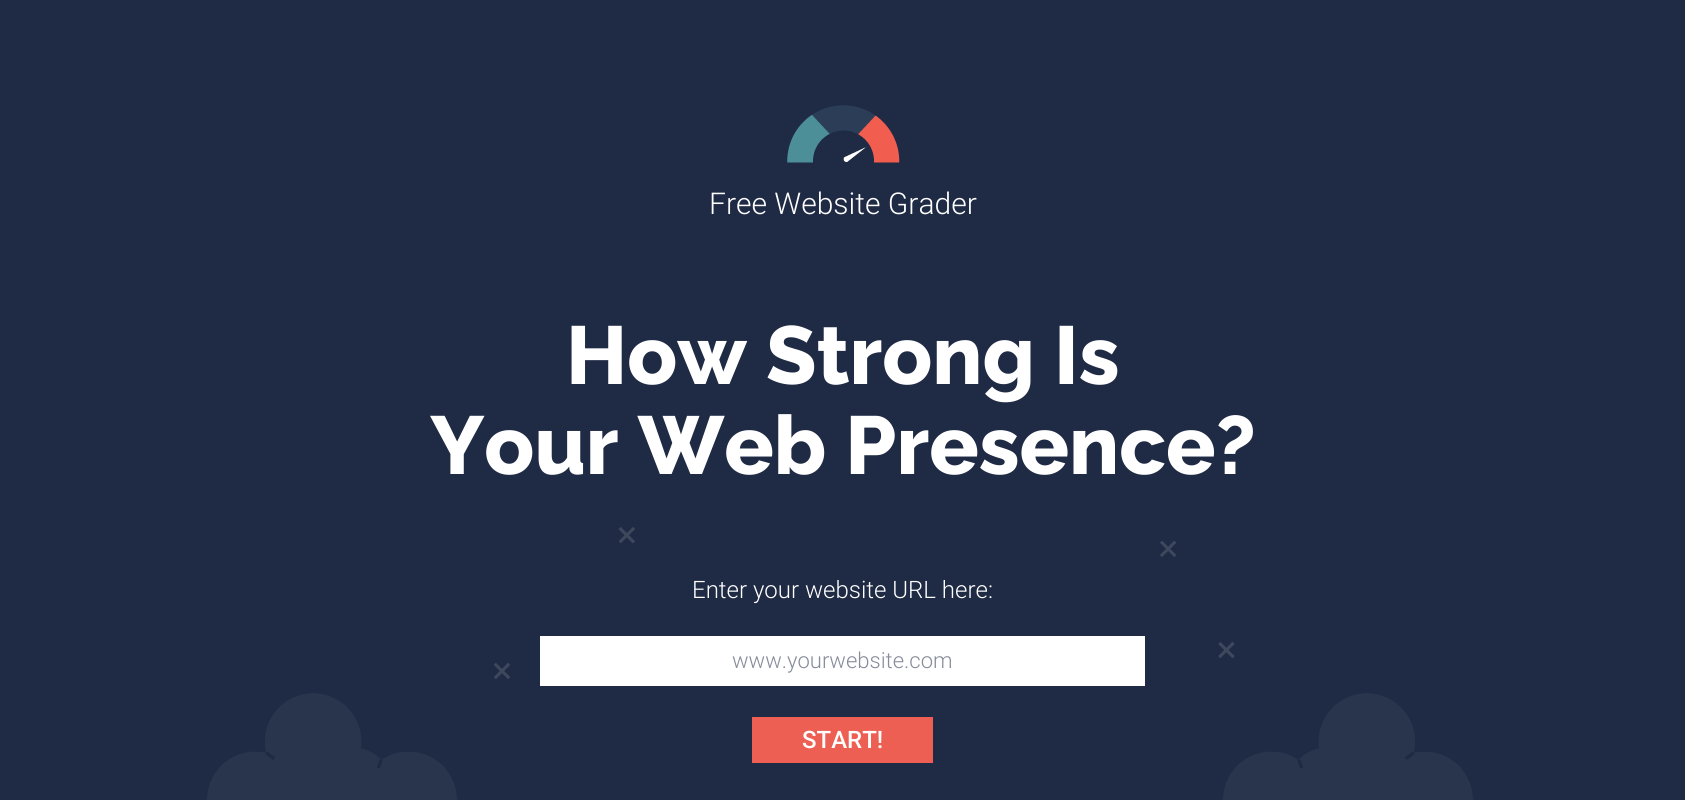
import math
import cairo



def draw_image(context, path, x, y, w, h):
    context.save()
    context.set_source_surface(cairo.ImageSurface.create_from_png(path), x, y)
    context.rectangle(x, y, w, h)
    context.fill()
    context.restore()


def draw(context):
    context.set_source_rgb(31 / 255, 42 / 255, 68 / 255)
    context.paint()
    draw_image(context, "images/1.png", 207, 527, 1266, 273)
    draw_image(context, "images/2.png", 787, 105, 113, 58)
    context.set_source_rgb(1, 1, 1)
    context.rectangle(540, 636, 605, 50)
    context.fill()
    context.set_source_rgb(238 / 255, 95 / 255, 83 / 255)
    context.rectangle(752, 717, 181, 46)
    context.fill()
    context.select_font_face("Roboto Light")
    context.set_font_size(30)
    context.set_source_rgb(1, 1, 1)
    context.move_to(709, 214)
    context.show_text("Free Website Grader")
    context.select_font_face("Raleway ExtraBold")
    context.set_font_size(82)
    context.move_to(566, 384)
    context.show_text("How Strong Is")
    context.move_to(430, 474)
    context.show_text("Your Web Presence?")
    context.select_font_face("Roboto Light")
    context.set_font_size(24)
    context.move_to(692, 598)
    context.show_text("Enter your website URL here:")
    context.set_font_size(22)
    context.set_source_rgb(134 / 255, 140 / 255, 154 / 255)
    context.move_to(732, 668)
    context.show_text("www.yourwebsite.com")
    context.select_font_face("Roboto Medium")
    context.set_font_size(24)
    context.set_source_rgb(1, 1, 1)
    context.move_to(802, 748)
    context.show_text("START!")


surface = cairo.ImageSurface(cairo.Format.RGB24, 1685, 800)
context = cairo.Context(surface)
options = cairo.FontOptions()
options.set_hint_metrics(cairo.HintMetrics.OFF)
options.set_hint_style(cairo.HintStyle.NONE)
context.set_font_options(options)
context.set_miter_limit(4)
draw(context)
surface.write_to_png("out.png")
